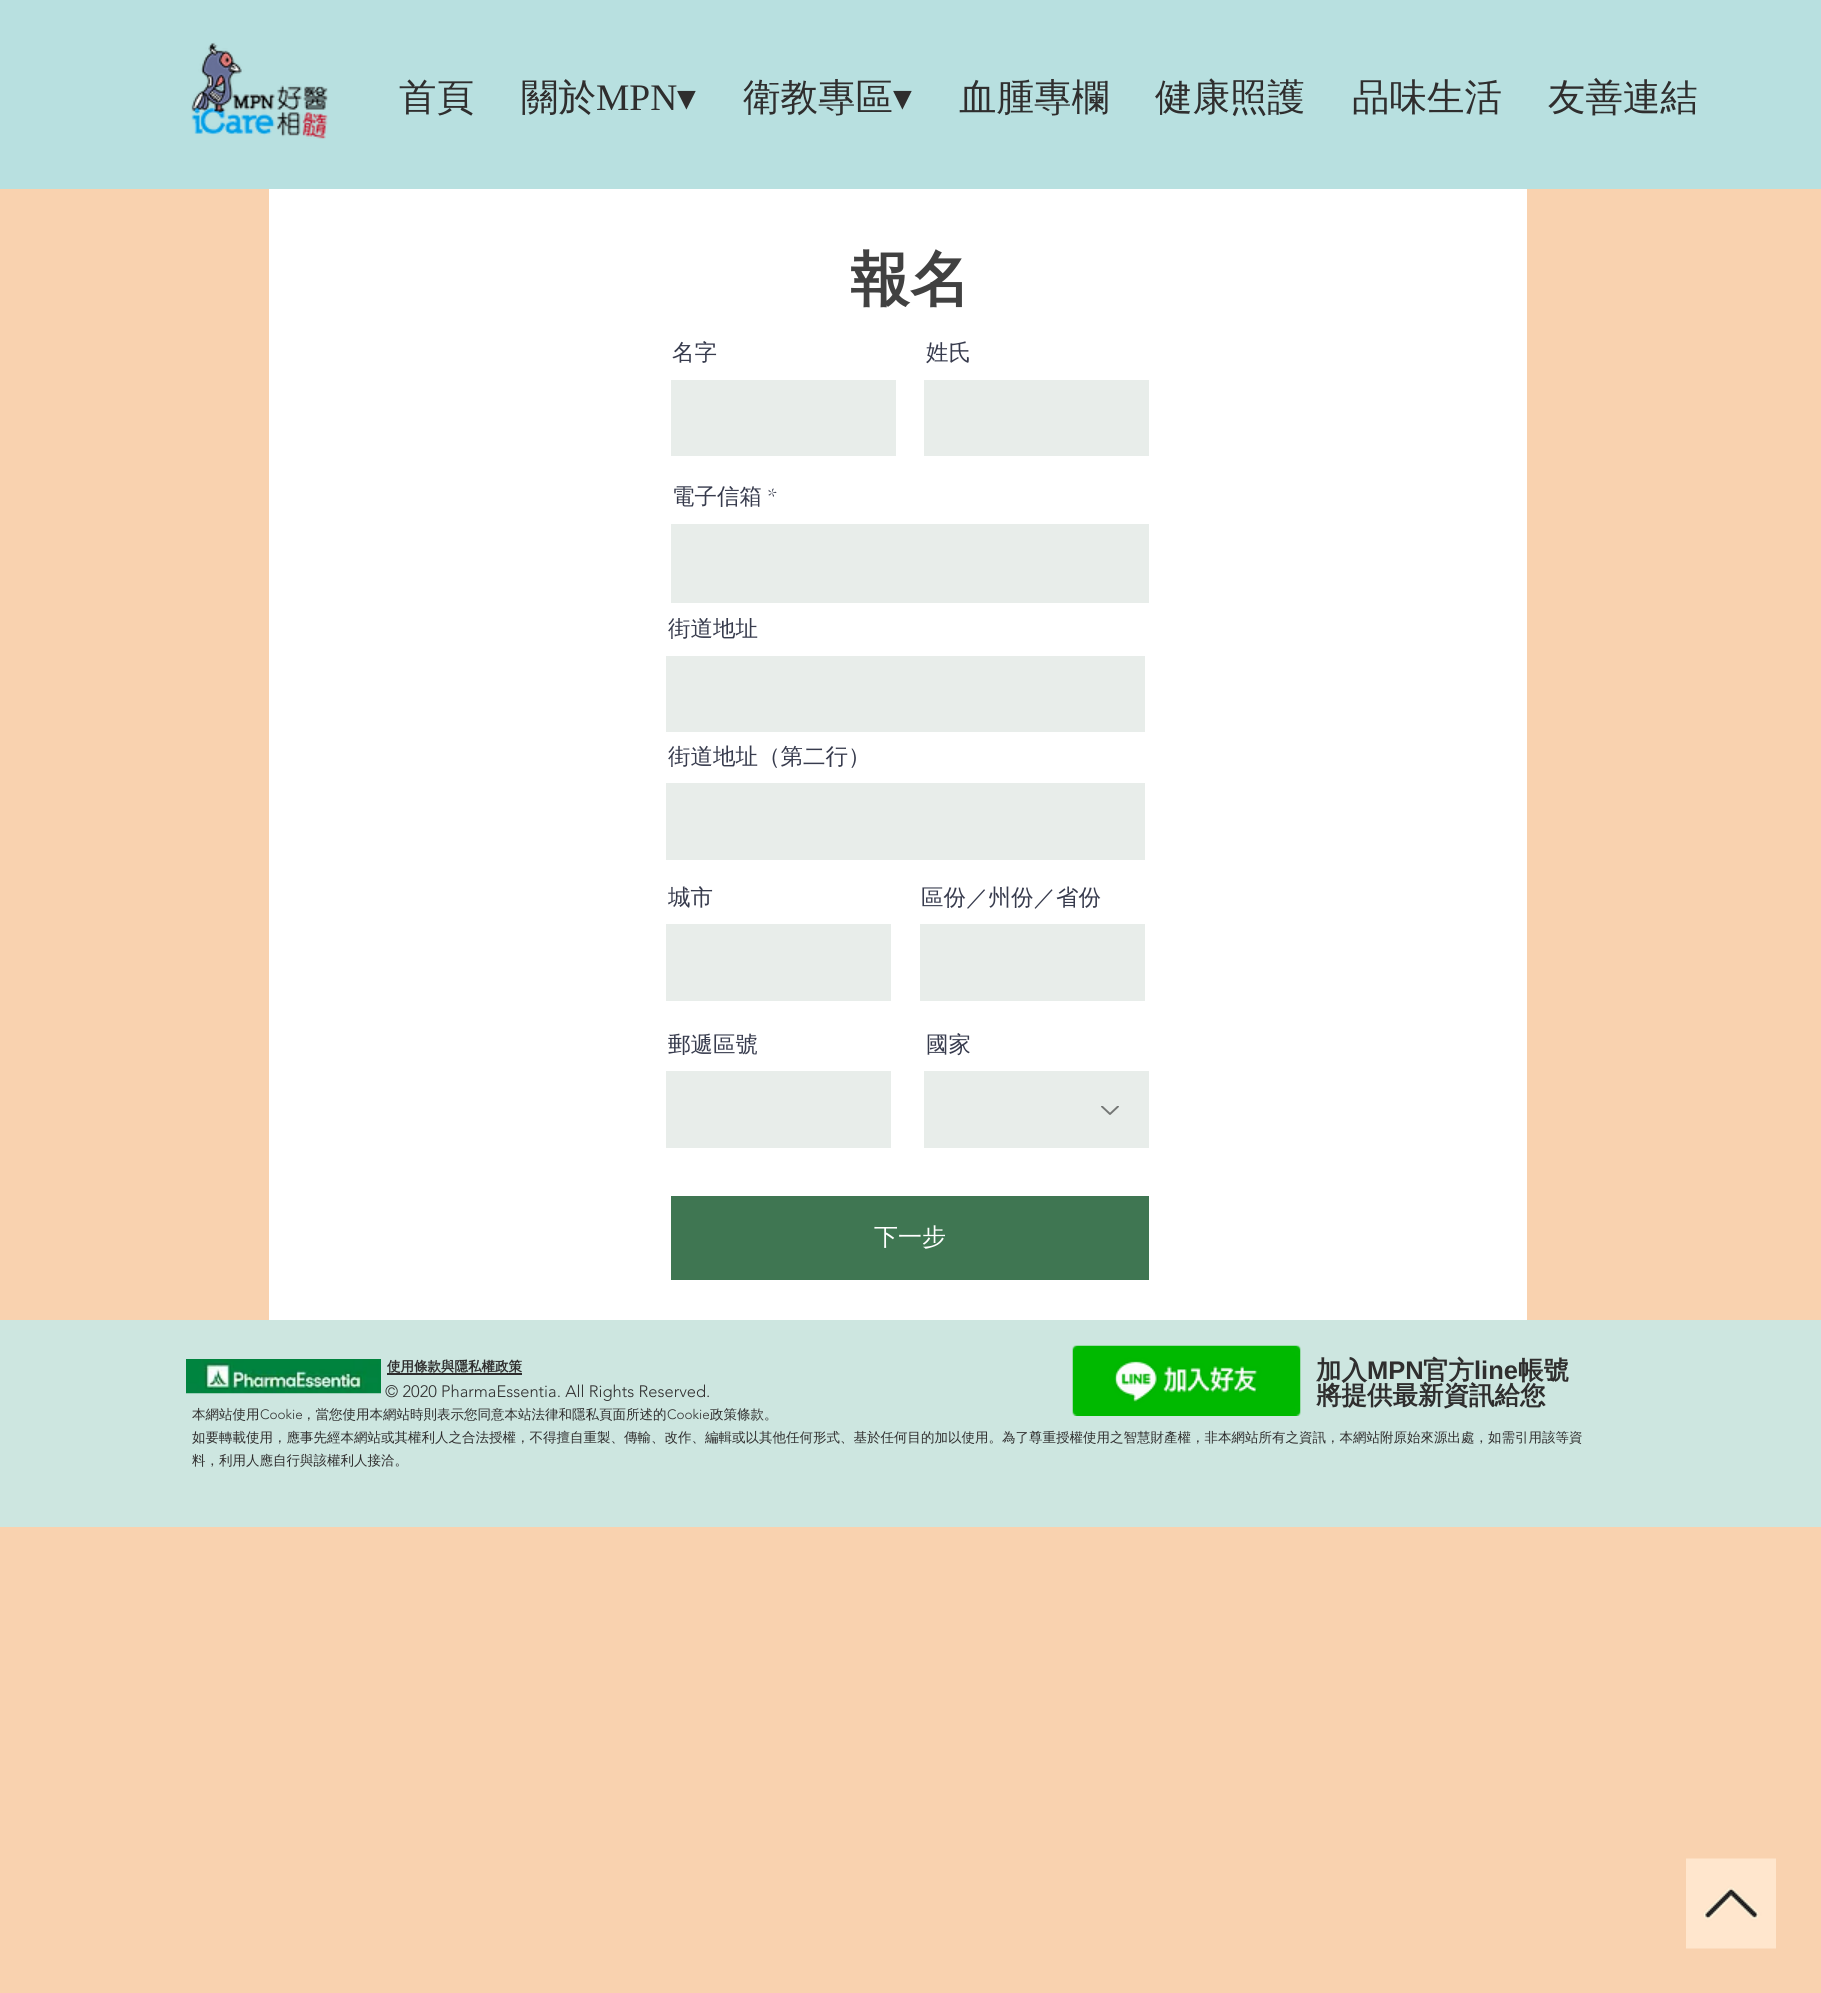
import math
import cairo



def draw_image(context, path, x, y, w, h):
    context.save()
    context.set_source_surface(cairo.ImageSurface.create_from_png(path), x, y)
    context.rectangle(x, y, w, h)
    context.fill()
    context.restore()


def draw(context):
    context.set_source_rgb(249 / 255, 210 / 255, 175 / 255)
    context.paint()
    context.set_source_rgb(184 / 255, 224 / 255, 224 / 255)
    context.rectangle(0, 0, 1821, 189)
    context.fill()
    draw_image(context, "images/1.png", 191, 42, 137, 97)
    context.set_source_rgb(1, 1, 1)
    context.rectangle(269, 189, 1258, 1131)
    context.fill()
    context.set_source_rgb(232 / 255, 237 / 255, 234 / 255)
    context.rectangle(671, 380, 225, 76)
    context.fill()
    context.rectangle(924, 380, 225, 76)
    context.fill()
    context.rectangle(671, 524, 478, 79)
    context.fill()
    context.rectangle(666, 656, 479, 76)
    context.fill()
    context.rectangle(666, 783, 479, 77)
    context.fill()
    context.rectangle(666, 924, 225, 77)
    context.fill()
    context.rectangle(920, 924, 225, 77)
    context.fill()
    context.rectangle(666, 1071, 225, 77)
    context.fill()
    context.rectangle(924, 1071, 225, 77)
    context.fill()
    draw_image(context, "images/2.png", 1101, 1106, 18, 9)
    context.set_source_rgb(63 / 255, 118 / 255, 82 / 255)
    context.rectangle(671, 1196, 478, 84)
    context.fill()
    context.set_source_rgb(205 / 255, 230 / 255, 224 / 255)
    context.rectangle(0, 1320, 1821, 207)
    context.fill()
    draw_image(context, "images/3.png", 186, 1359, 195, 35)
    context.set_source_rgb(47 / 255, 46 / 255, 46 / 255)
    context.rectangle(387, 1373, 135, 2)
    context.fill()
    draw_image(context, "images/4.png", 1072, 1345, 229, 71)
    draw_image(context, "images/5.png", 1686, 1858, 90, 91)
    context.select_font_face("WenQuanYi Zen Hei Medium")
    context.set_font_size(37.5)
    context.move_to(399, 110)
    context.show_text("首頁")
    context.move_to(521, 110)
    context.show_text("關於")
    context.select_font_face("Liberation Serif")
    context.move_to(596, 110)
    context.show_text("MPN")
    context.select_font_face("DejaVu Sans")
    context.move_to(677, 110)
    context.show_text("▾")
    context.select_font_face("WenQuanYi Zen Hei Medium")
    context.move_to(743, 110)
    context.show_text("衛教專區")
    context.select_font_face("DejaVu Sans")
    context.move_to(893, 110)
    context.show_text("▾")
    context.select_font_face("WenQuanYi Zen Hei Medium")
    context.move_to(959, 110)
    context.show_text("血腫專欄")
    context.move_to(1155, 110)
    context.show_text("健康照護")
    context.move_to(1352, 110)
    context.show_text("品味生活")
    context.move_to(1548, 110)
    context.show_text("友善連結")
    context.select_font_face("WenQuanYi Zen Hei", cairo.FontSlant.NORMAL, cairo.FontWeight.BOLD)
    context.set_font_size(60)
    context.set_source_rgb(65 / 255, 65 / 255, 65 / 255)
    context.move_to(850, 300)
    context.show_text("報名")
    context.select_font_face("WenQuanYi Zen Hei Medium")
    context.set_font_size(22.5)
    context.set_source_rgb(55 / 255, 59 / 255, 77 / 255)
    context.move_to(672, 360)
    context.show_text("名字")
    context.move_to(926, 360)
    context.show_text("姓氏")
    context.move_to(672, 504)
    context.show_text("電子信箱")
    context.select_font_face("Cormorant Garamond Light")
    context.move_to(767, 504)
    context.show_text("*")
    context.save()
    context.rectangle(666, 618, 489, 560)
    context.clip()
    context.select_font_face("WenQuanYi Zen Hei Medium")
    context.move_to(668, 636)
    context.show_text("街道地址")
    context.restore()
    context.select_font_face("WenQuanYi Zen Hei Medium")
    context.move_to(668, 764)
    context.show_text("街道地址（第二行）")
    context.move_to(668, 905)
    context.show_text("城市")
    context.move_to(921, 905)
    context.show_text("區份／州份／省份")
    context.move_to(668, 1052)
    context.show_text("郵遞區號")
    context.move_to(926, 1052)
    context.show_text("國家")
    context.set_font_size(24)
    context.set_source_rgb(1, 1, 1)
    context.move_to(874, 1245)
    context.show_text("下一步")
    context.select_font_face("WenQuanYi Zen Hei", cairo.FontSlant.NORMAL, cairo.FontWeight.BOLD)
    context.set_font_size(13.5)
    context.set_source_rgb(47 / 255, 46 / 255, 46 / 255)
    context.move_to(387, 1371)
    context.show_text("使用條款與隱私權政策")
    context.set_font_size(25.5)
    context.move_to(1316, 1379)
    context.show_text("加入")
    context.select_font_face("Liberation Sans", cairo.FontSlant.NORMAL, cairo.FontWeight.BOLD)
    context.move_to(1367, 1379)
    context.show_text("MPN")
    context.select_font_face("WenQuanYi Zen Hei", cairo.FontSlant.NORMAL, cairo.FontWeight.BOLD)
    context.move_to(1423, 1379)
    context.show_text("官方")
    context.select_font_face("Liberation Sans", cairo.FontSlant.NORMAL, cairo.FontWeight.BOLD)
    context.move_to(1474, 1379)
    context.show_text("line")
    context.select_font_face("WenQuanYi Zen Hei", cairo.FontSlant.NORMAL, cairo.FontWeight.BOLD)
    context.move_to(1518, 1379)
    context.show_text("帳號")
    context.move_to(1316, 1404)
    context.show_text("將提供最新資訊給您")
    context.select_font_face("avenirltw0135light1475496 Light")
    context.set_font_size(16.5)
    context.move_to(385, 1397)
    context.show_text("© 2020 PharmaEssentia. All Rights Reserved.")
    context.select_font_face("WenQuanYi Zen Hei Medium")
    context.set_font_size(13.5)
    context.move_to(192, 1419)
    context.show_text("本網站使用")
    context.select_font_face("avenirltw0135light1475496 Light")
    context.move_to(260, 1419)
    context.show_text("Cookie")
    context.select_font_face("WenQuanYi Zen Hei Medium")
    context.move_to(302, 1419)
    context.show_text("，當您使用本網站時則表示您同意本站法律和隱私頁面所述的")
    context.select_font_face("avenirltw0135light1475496 Light")
    context.move_to(667, 1419)
    context.show_text("Cookie")
    context.select_font_face("WenQuanYi Zen Hei Medium")
    context.move_to(710, 1419)
    context.show_text("政策條款。")
    context.move_to(192, 1442)
    context.show_text("如要轉載使用，應事先經本網站或其權利人之合法授權，不得擅自重製、傳輸、改作、編輯或以其他任何形式、基於任何目的加以使用。為了尊重授權使用之智慧財產權，非本網站所有之資訊，本網站附原始來源出處，如需引用該等資")
    context.move_to(192, 1465)
    context.show_text("料，利用人應自行與該權利人接洽。")


surface = cairo.ImageSurface(cairo.Format.RGB24, 1821, 1993)
context = cairo.Context(surface)
options = cairo.FontOptions()
options.set_hint_metrics(cairo.HintMetrics.OFF)
options.set_hint_style(cairo.HintStyle.NONE)
context.set_font_options(options)
context.set_miter_limit(4)
draw(context)
surface.write_to_png("out.png")
